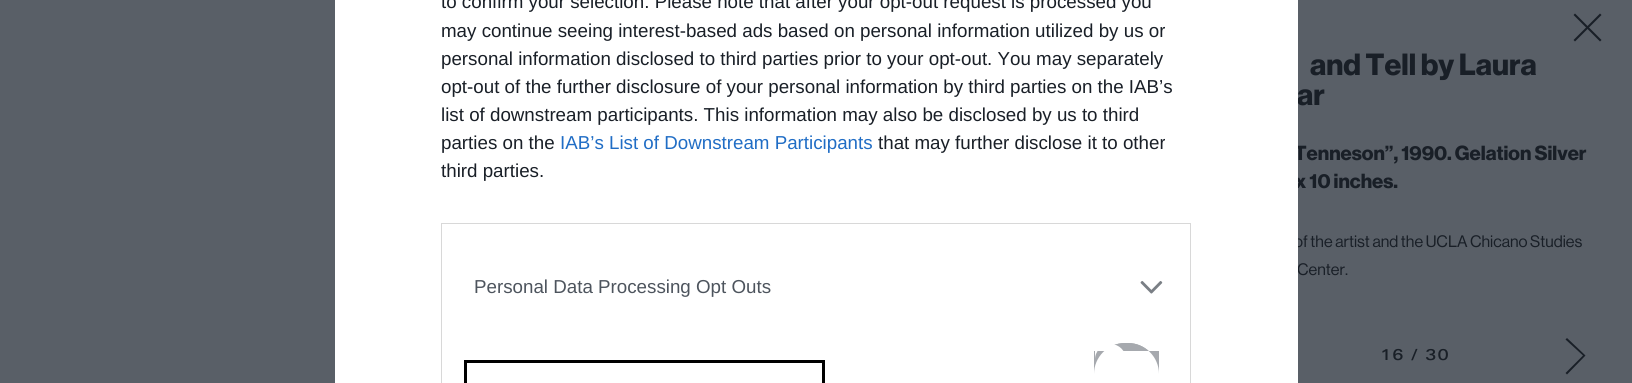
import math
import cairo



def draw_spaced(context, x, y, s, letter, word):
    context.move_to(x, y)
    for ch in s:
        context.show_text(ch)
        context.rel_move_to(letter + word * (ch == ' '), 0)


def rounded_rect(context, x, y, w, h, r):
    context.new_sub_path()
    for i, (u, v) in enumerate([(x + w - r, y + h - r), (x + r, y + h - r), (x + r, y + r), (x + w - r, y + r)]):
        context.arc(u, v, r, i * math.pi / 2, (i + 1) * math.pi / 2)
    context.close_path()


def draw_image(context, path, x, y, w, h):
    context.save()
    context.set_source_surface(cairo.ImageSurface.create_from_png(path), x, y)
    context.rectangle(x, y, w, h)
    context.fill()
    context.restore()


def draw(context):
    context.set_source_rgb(89 / 255, 95 / 255, 103 / 255)
    context.paint()
    context.set_source_rgb(25 / 255, 31 / 255, 39 / 255)
    context.set_fill_rule(cairo.FillRule.EVEN_ODD)
    context.new_path()
    context.move_to(1600, 13.5)
    context.line_to(1601.5, 15)
    context.line_to(1575, 41.5)
    context.line_to(1573.5, 40)
    context.close_path()
    context.fill()
    context.new_path()
    context.move_to(1601.5, 40)
    context.line_to(1600, 41.5)
    context.line_to(1573.5, 15)
    context.line_to(1575, 13.5)
    context.close_path()
    context.fill()
    context.set_fill_rule(cairo.FillRule.WINDING)
    context.new_path()
    context.move_to(1583, 355.5)
    context.line_to(1565.5, 339.5)
    context.line_to(1567, 338)
    context.line_to(1585.5, 355.5)
    context.line_to(1567, 374.5)
    context.line_to(1565.5, 373)
    context.close_path()
    context.fill()
    context.select_font_face("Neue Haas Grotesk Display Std", cairo.FontSlant.NORMAL, cairo.FontWeight.BOLD)
    context.set_font_size(30)
    context.move_to(1310, 75)
    context.show_text("and Tell by Laura")
    context.move_to(1297, 105)
    context.show_text("ar")
    context.set_font_size(20)
    context.move_to(1294, 160)
    context.show_text("Tenneson”, 1990. Gelation Silver")
    context.move_to(1295, 188)
    context.show_text("x 10 inches.")
    context.select_font_face("Neue Haas Grotesk Display Std")
    context.set_font_size(16.25)
    context.move_to(1294, 247)
    context.show_text("of the artist and the UCLA Chicano Studies")
    context.move_to(1297, 275)
    context.show_text("Center.")
    context.set_source_rgb(1, 1, 1)
    context.rectangle(335, 0, 963, 383)
    context.fill()
    context.rectangle(441.5, 223.5, 749, 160)
    context.set_source_rgb(216 / 255, 216 / 255, 216 / 255)
    context.set_line_width(1)
    context.stroke()
    context.set_source_rgb(166 / 255, 169 / 255, 174 / 255)
    context.new_path()
    context.move_to(1125, 343)
    context.line_to(1128, 343)
    context.curve_to(1145, 343, 1159, 357, 1159, 374)
    context.line_to(1159, 351)
    context.line_to(1094, 351)
    context.line_to(1094, 374)
    context.curve_to(1094, 357, 1108, 343, 1125, 343)
    context.close_path()
    context.fill()
    context.save()
    context.rectangle(455, 236, 723, 115)
    context.clip()
    rounded_rect(context, 1094.5, 343.5, 64, 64, 30.5)
    context.stroke()
    context.restore()
    context.set_source_rgb(1, 1, 1)
    context.new_path()
    context.move_to(1110.5, 344)
    context.curve_to(1119, 344, 1126, 351, 1126, 359.5)
    context.line_to(1126, 351)
    context.line_to(1095, 351)
    context.line_to(1095, 359.5)
    context.curve_to(1095, 351, 1102, 344, 1110.5, 344)
    context.close_path()
    context.fill()
    draw_image(context, "images/1.png", 1140, 281, 23, 13)
    context.rectangle(465.5, 361.5, 358, 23)
    context.set_source_rgb(0, 0, 0)
    context.set_line_width(3)
    context.stroke()
    context.select_font_face("Liberation Sans")
    context.set_font_size(18.75)
    context.set_source_rgb(77 / 255, 84 / 255, 93 / 255)
    context.move_to(474, 293)
    context.show_text("Personal Data Processing Opt Outs")
    context.set_source_rgb(25 / 255, 31 / 255, 39 / 255)
    context.move_to(441, 177)
    context.show_text("third parties.")
    context.move_to(878, 149)
    context.show_text("that may further disclose it to other")
    context.set_source_rgb(32 / 255, 109 / 255, 197 / 255)
    context.move_to(560, 149)
    context.show_text("IAB’s List of Downstream Participants")
    context.set_source_rgb(25 / 255, 31 / 255, 39 / 255)
    context.move_to(441, 149)
    context.show_text("parties on the")
    context.move_to(441, 121)
    context.show_text("list of downstream participants. This information may also be disclosed by us to third")
    context.move_to(441, 93)
    context.show_text("opt-out of the further disclosure of your personal information by third parties on the IAB’s")
    context.move_to(441, 65)
    context.show_text("personal information disclosed to third parties prior to your opt-out. You may separately")
    context.move_to(441, 37)
    context.show_text("may continue seeing interest-based ads based on personal information utilized by us or")
    context.move_to(441, 8)
    context.show_text("to confirm your selection. Please note that after your opt-out request is processed you")
    context.select_font_face("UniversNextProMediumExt")
    context.set_font_size(15)
    draw_spaced(context, 1380, 360, "16 / 30", 1, 0)


surface = cairo.ImageSurface(cairo.Format.RGB24, 1632, 383)
context = cairo.Context(surface)
options = cairo.FontOptions()
options.set_hint_metrics(cairo.HintMetrics.OFF)
options.set_hint_style(cairo.HintStyle.NONE)
context.set_font_options(options)
context.set_miter_limit(4)
draw(context)
surface.write_to_png("out.png")
